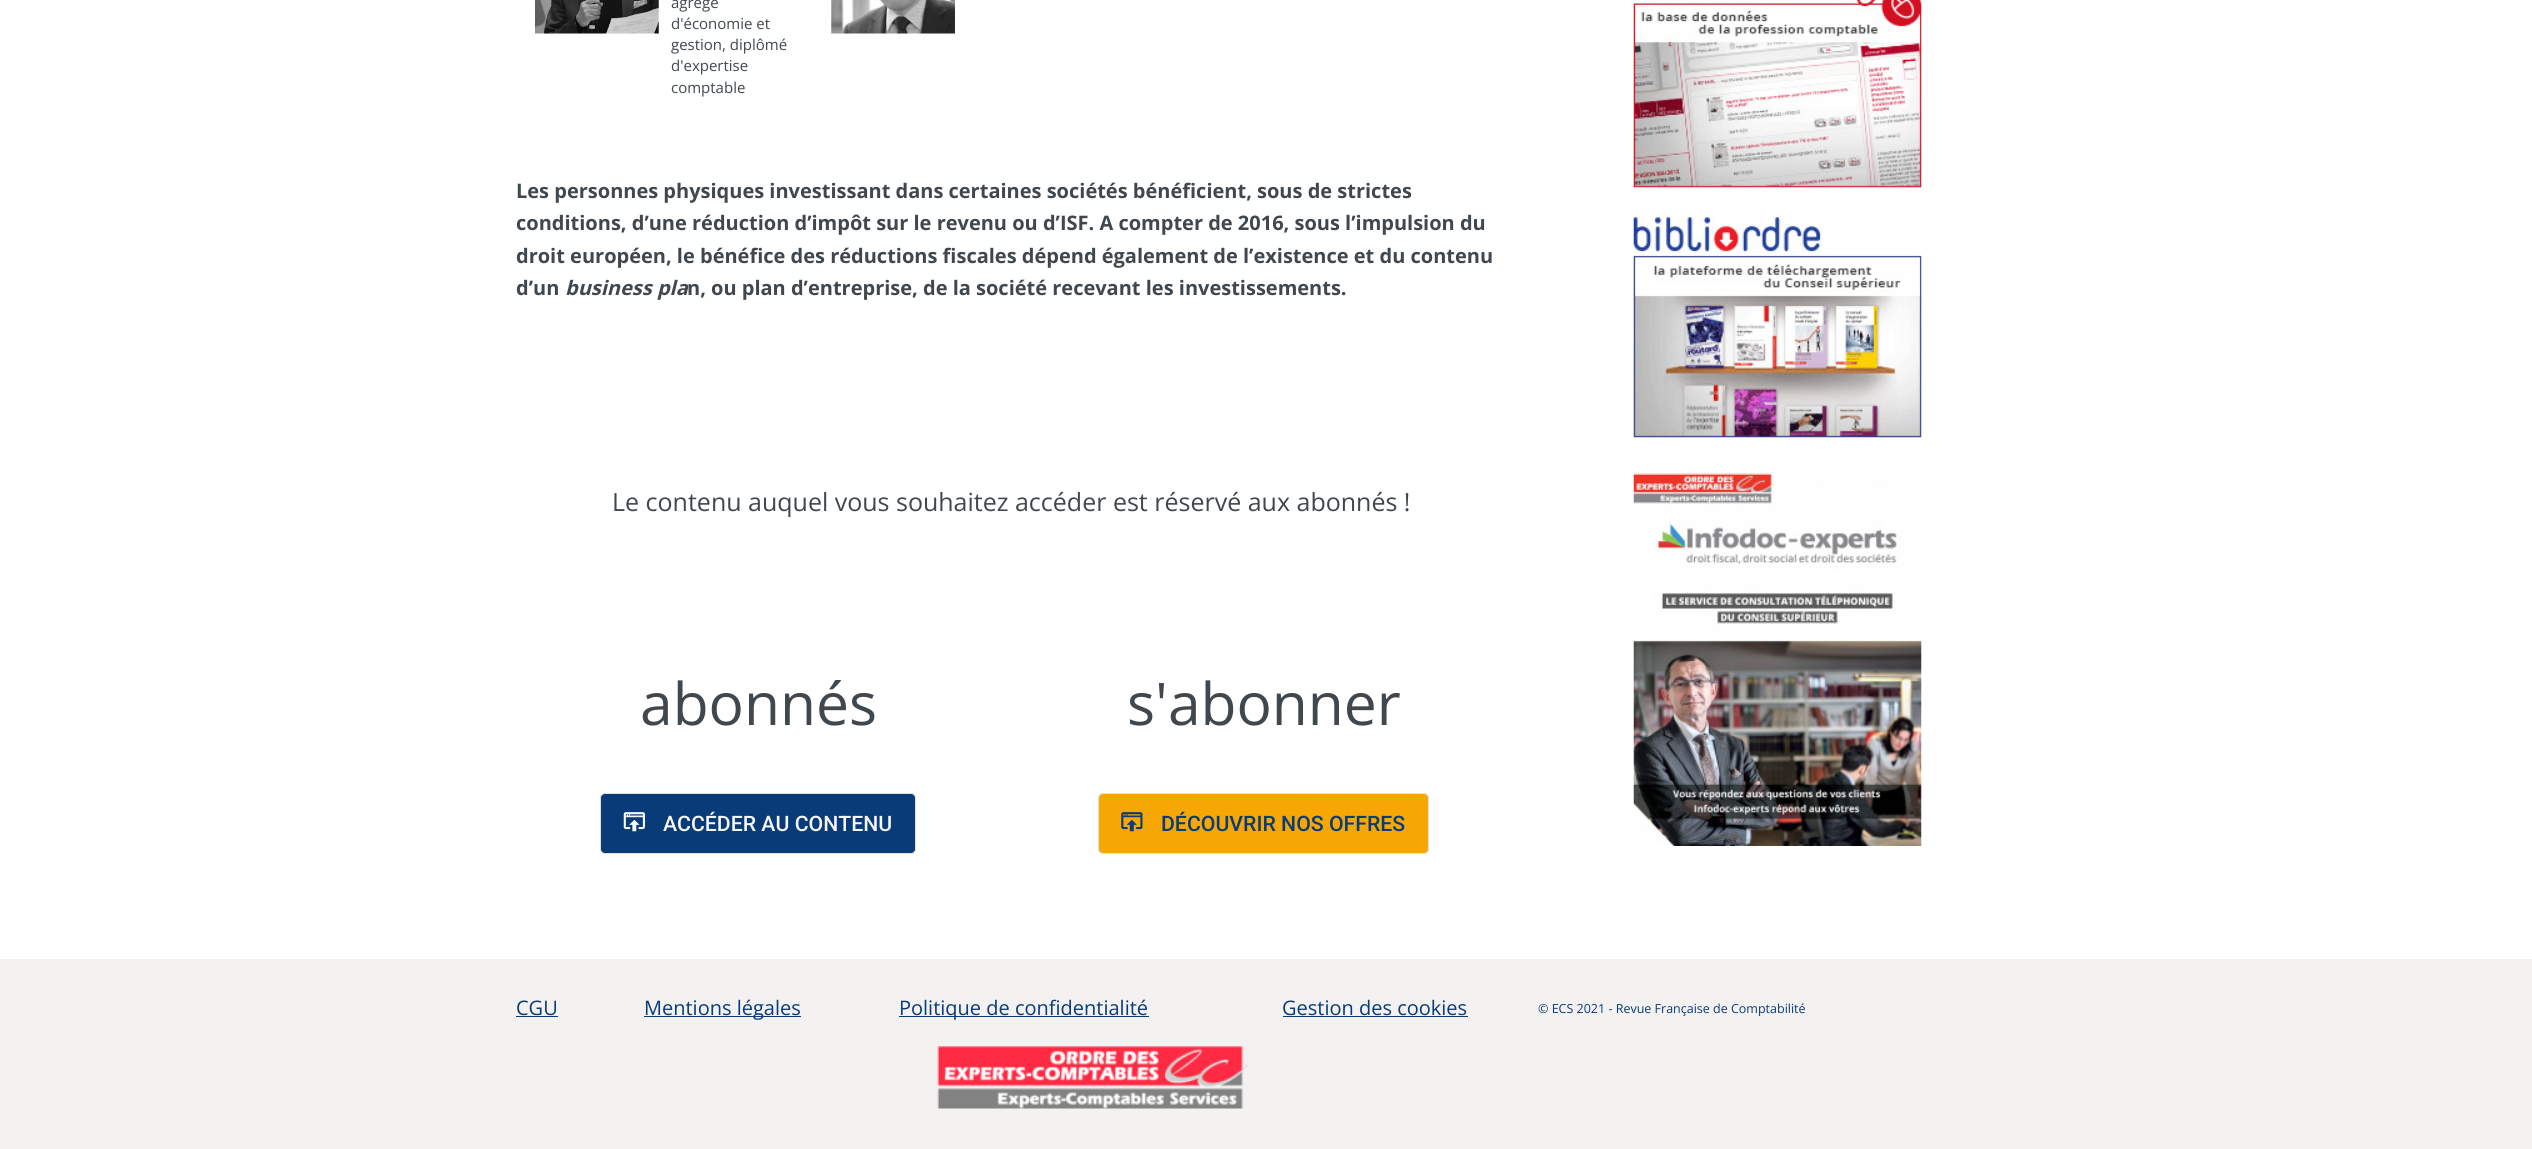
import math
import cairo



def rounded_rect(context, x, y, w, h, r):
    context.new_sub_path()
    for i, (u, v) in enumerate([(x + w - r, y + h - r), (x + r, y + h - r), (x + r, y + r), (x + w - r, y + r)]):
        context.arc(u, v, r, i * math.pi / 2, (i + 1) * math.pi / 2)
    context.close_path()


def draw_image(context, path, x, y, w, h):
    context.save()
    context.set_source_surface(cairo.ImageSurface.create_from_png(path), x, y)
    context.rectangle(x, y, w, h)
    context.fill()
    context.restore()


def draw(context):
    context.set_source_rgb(1, 1, 1)
    context.paint()
    draw_image(context, "images/1.png", 535, 0, 124, 34)
    draw_image(context, "images/2.png", 831, 0, 124, 34)
    context.set_source_rgb(9 / 255, 59 / 255, 120 / 255)
    rounded_rect(context, 600.5, 793.5, 315, 60, 4.5)
    context.fill_preserve()
    context.set_source_rgb(226 / 255, 223 / 255, 223 / 255)
    context.set_line_width(1)
    context.stroke()
    draw_image(context, "images/3.png", 623, 812, 22, 20)
    context.set_source_rgb(246 / 255, 167 / 255, 4 / 255)
    rounded_rect(context, 1098.5, 793.5, 330, 60, 4.5)
    context.fill_preserve()
    context.set_source_rgb(226 / 255, 223 / 255, 223 / 255)
    context.stroke()
    draw_image(context, "images/4.png", 1121, 812, 22, 20)
    draw_image(context, "images/5.png", 1633, 0, 289, 188)
    draw_image(context, "images/6.png", 1633, 213, 289, 225)
    draw_image(context, "images/7.png", 1633, 471, 289, 375)
    context.set_source_rgb(244 / 255, 241 / 255, 241 / 255)
    context.rectangle(0, 959, 2532, 190)
    context.fill()
    context.set_source_rgb(9 / 255, 59 / 255, 120 / 255)
    context.rectangle(516, 1016, 42, 1)
    context.fill()
    context.rectangle(644, 1016, 157, 1)
    context.fill()
    context.rectangle(899, 1016, 250, 1)
    context.fill()
    context.rectangle(1283, 1016, 185, 1)
    context.fill()
    draw_image(context, "images/8.png", 937, 1046, 313, 63)
    context.select_font_face("Open Sans")
    context.set_font_size(15)
    context.set_source_rgb(65 / 255, 72 / 255, 77 / 255)
    context.move_to(671, 8)
    context.show_text("agrégé")
    context.move_to(671, 29)
    context.show_text("d'économie et")
    context.move_to(671, 50)
    context.show_text("gestion, diplômé")
    context.move_to(671, 71)
    context.show_text("d'expertise")
    context.move_to(671, 93)
    context.show_text("comptable")
    context.select_font_face("Open Sans", cairo.FontSlant.NORMAL, cairo.FontWeight.BOLD)
    context.set_font_size(20)
    context.move_to(516, 198)
    context.show_text("Les personnes physiques investissant dans certaines sociétés bénéficient, sous de strictes")
    context.move_to(516, 230)
    context.show_text("conditions, d’une réduction d’impôt sur le revenu ou d’ISF. A compter de 2016, sous l’impulsion du")
    context.move_to(516, 263)
    context.show_text("droit européen, le bénéfice des réductions fiscales dépend également de l’existence et du contenu")
    context.move_to(516, 295)
    context.show_text("d’un")
    context.select_font_face("Open Sans", cairo.FontSlant.ITALIC, cairo.FontWeight.BOLD)
    context.move_to(565, 295)
    context.show_text("business pla")
    context.select_font_face("Open Sans", cairo.FontSlant.NORMAL, cairo.FontWeight.BOLD)
    context.move_to(687, 295)
    context.show_text("n, ou plan d’entreprise, de la société recevant les investissements.")
    context.select_font_face("Open Sans")
    context.set_font_size(25)
    context.move_to(612, 511)
    context.show_text("Le contenu auquel vous souhaitez accéder est réservé aux abonnés !")
    context.set_font_size(58.75)
    context.move_to(640, 725)
    context.show_text("abonnés")
    context.select_font_face("Roboto Medium")
    context.set_font_size(21.25)
    context.set_source_rgb(248 / 255, 248 / 255, 248 / 255)
    context.move_to(663, 831)
    context.show_text("ACCÉDER AU CONTENU")
    context.select_font_face("Open Sans")
    context.set_font_size(58.75)
    context.set_source_rgb(65 / 255, 72 / 255, 77 / 255)
    context.move_to(1127, 725)
    context.show_text("s'abonner")
    context.select_font_face("Roboto Medium")
    context.set_font_size(21.25)
    context.set_source_rgb(9 / 255, 59 / 255, 120 / 255)
    context.move_to(1161, 831)
    context.show_text("DÉCOUVRIR NOS OFFRES")
    context.select_font_face("Open Sans")
    context.set_font_size(20)
    context.move_to(516, 1015)
    context.show_text("CGU")
    context.move_to(644, 1015)
    context.show_text("Mentions légales")
    context.move_to(899, 1015)
    context.show_text("Politique de confidentialité")
    context.move_to(1282, 1015)
    context.show_text("Gestion des cookies")
    context.set_font_size(12.5)
    context.move_to(1538, 1013)
    context.show_text("© ECS 2021 - Revue Française de Comptabilité")


surface = cairo.ImageSurface(cairo.Format.RGB24, 2532, 1149)
context = cairo.Context(surface)
options = cairo.FontOptions()
options.set_hint_metrics(cairo.HintMetrics.OFF)
options.set_hint_style(cairo.HintStyle.NONE)
context.set_font_options(options)
context.set_miter_limit(4)
draw(context)
surface.write_to_png("out.png")
